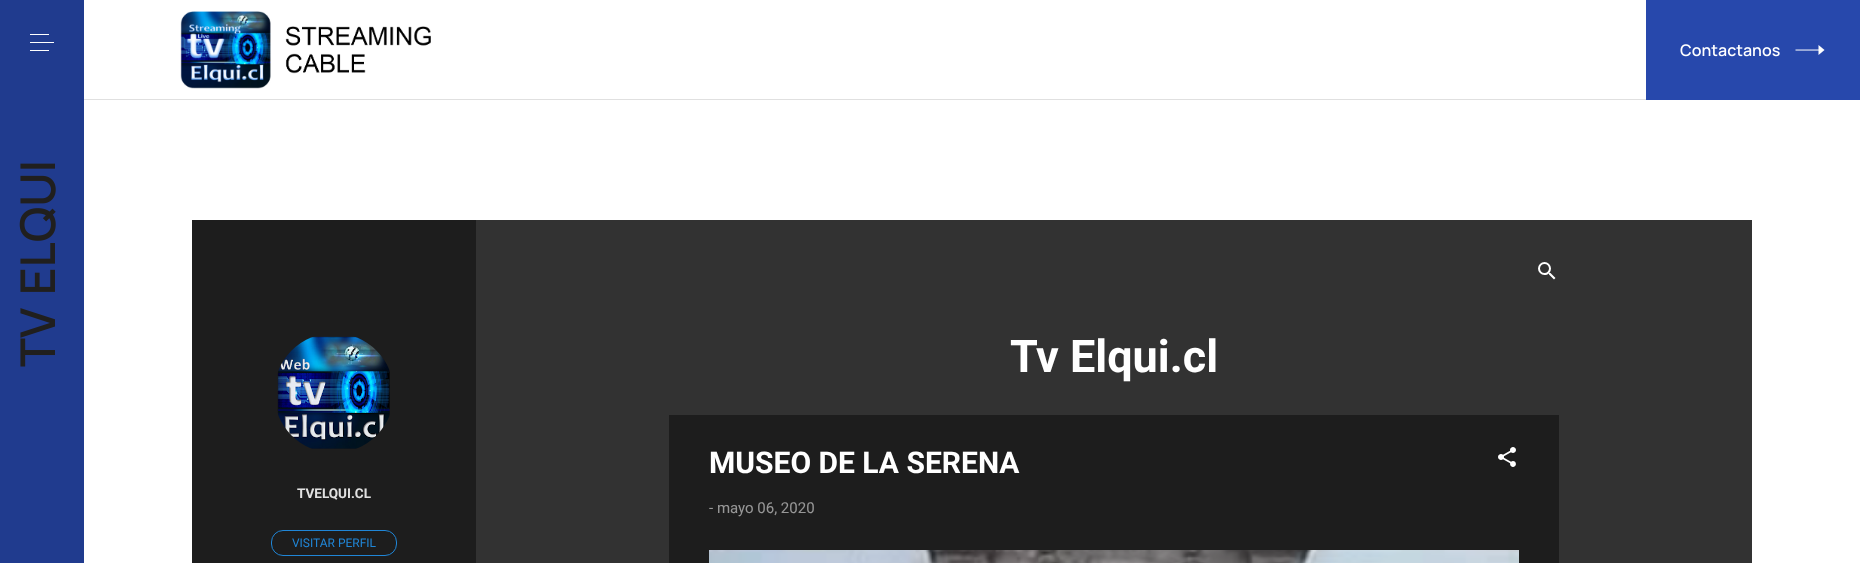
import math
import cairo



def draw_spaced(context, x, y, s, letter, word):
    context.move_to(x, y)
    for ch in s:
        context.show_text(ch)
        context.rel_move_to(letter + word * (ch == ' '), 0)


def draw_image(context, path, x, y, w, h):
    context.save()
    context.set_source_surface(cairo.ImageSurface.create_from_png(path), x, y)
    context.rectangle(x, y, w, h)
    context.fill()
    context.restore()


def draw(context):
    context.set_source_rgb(1, 1, 1)
    context.paint()
    context.set_source_rgb(224 / 255, 224 / 255, 224 / 255)
    context.rectangle(84, 99, 1562, 1)
    context.fill()
    draw_image(context, "images/1.png", 180, 11, 251, 78)
    context.set_source_rgb(39 / 255, 72 / 255, 172 / 255)
    context.rectangle(1646, 0, 214, 100)
    context.fill()
    context.new_path()
    context.move_to(1796, 50)
    context.line_to(1820, 50)
    context.set_source_rgb(1, 1, 1)
    context.set_line_width(1)
    context.set_line_cap(cairo.LineCap.SQUARE)
    context.set_line_join(cairo.LineJoin.ROUND)
    context.stroke()
    context.new_path()
    context.move_to(1818.5, 45)
    context.line_to(1824.5, 50)
    context.line_to(1818.5, 55)
    context.fill()
    context.set_source_rgb(32 / 255, 59 / 255, 142 / 255)
    context.rectangle(0, 0, 84, 563)
    context.fill()
    context.set_source_rgb(1, 1, 1)
    context.rectangle(30, 42, 24, 1)
    context.fill()
    context.rectangle(30, 34, 19, 1)
    context.fill()
    context.rectangle(30, 50, 19, 1)
    context.fill()
    draw_image(context, "images/2.png", 192, 220, 1560, 343)
    context.select_font_face("Manrope SemiBold")
    context.set_font_size(16)
    context.move_to(1680, 56)
    context.show_text("Contactanos")
    context.set_font_size(48)
    context.set_source_rgb(32 / 255, 31 / 255, 30 / 255)
    context.save()
    context.translate(55, 367)
    context.rotate(-90 * math.pi / 180)
    draw_spaced(context, 0, 0, "TV ELQUI", 0, 3)
    context.restore()


surface = cairo.ImageSurface(cairo.Format.RGB24, 1860, 563)
context = cairo.Context(surface)
options = cairo.FontOptions()
options.set_hint_metrics(cairo.HintMetrics.OFF)
options.set_hint_style(cairo.HintStyle.NONE)
context.set_font_options(options)
context.set_miter_limit(4)
draw(context)
surface.write_to_png("out.png")
